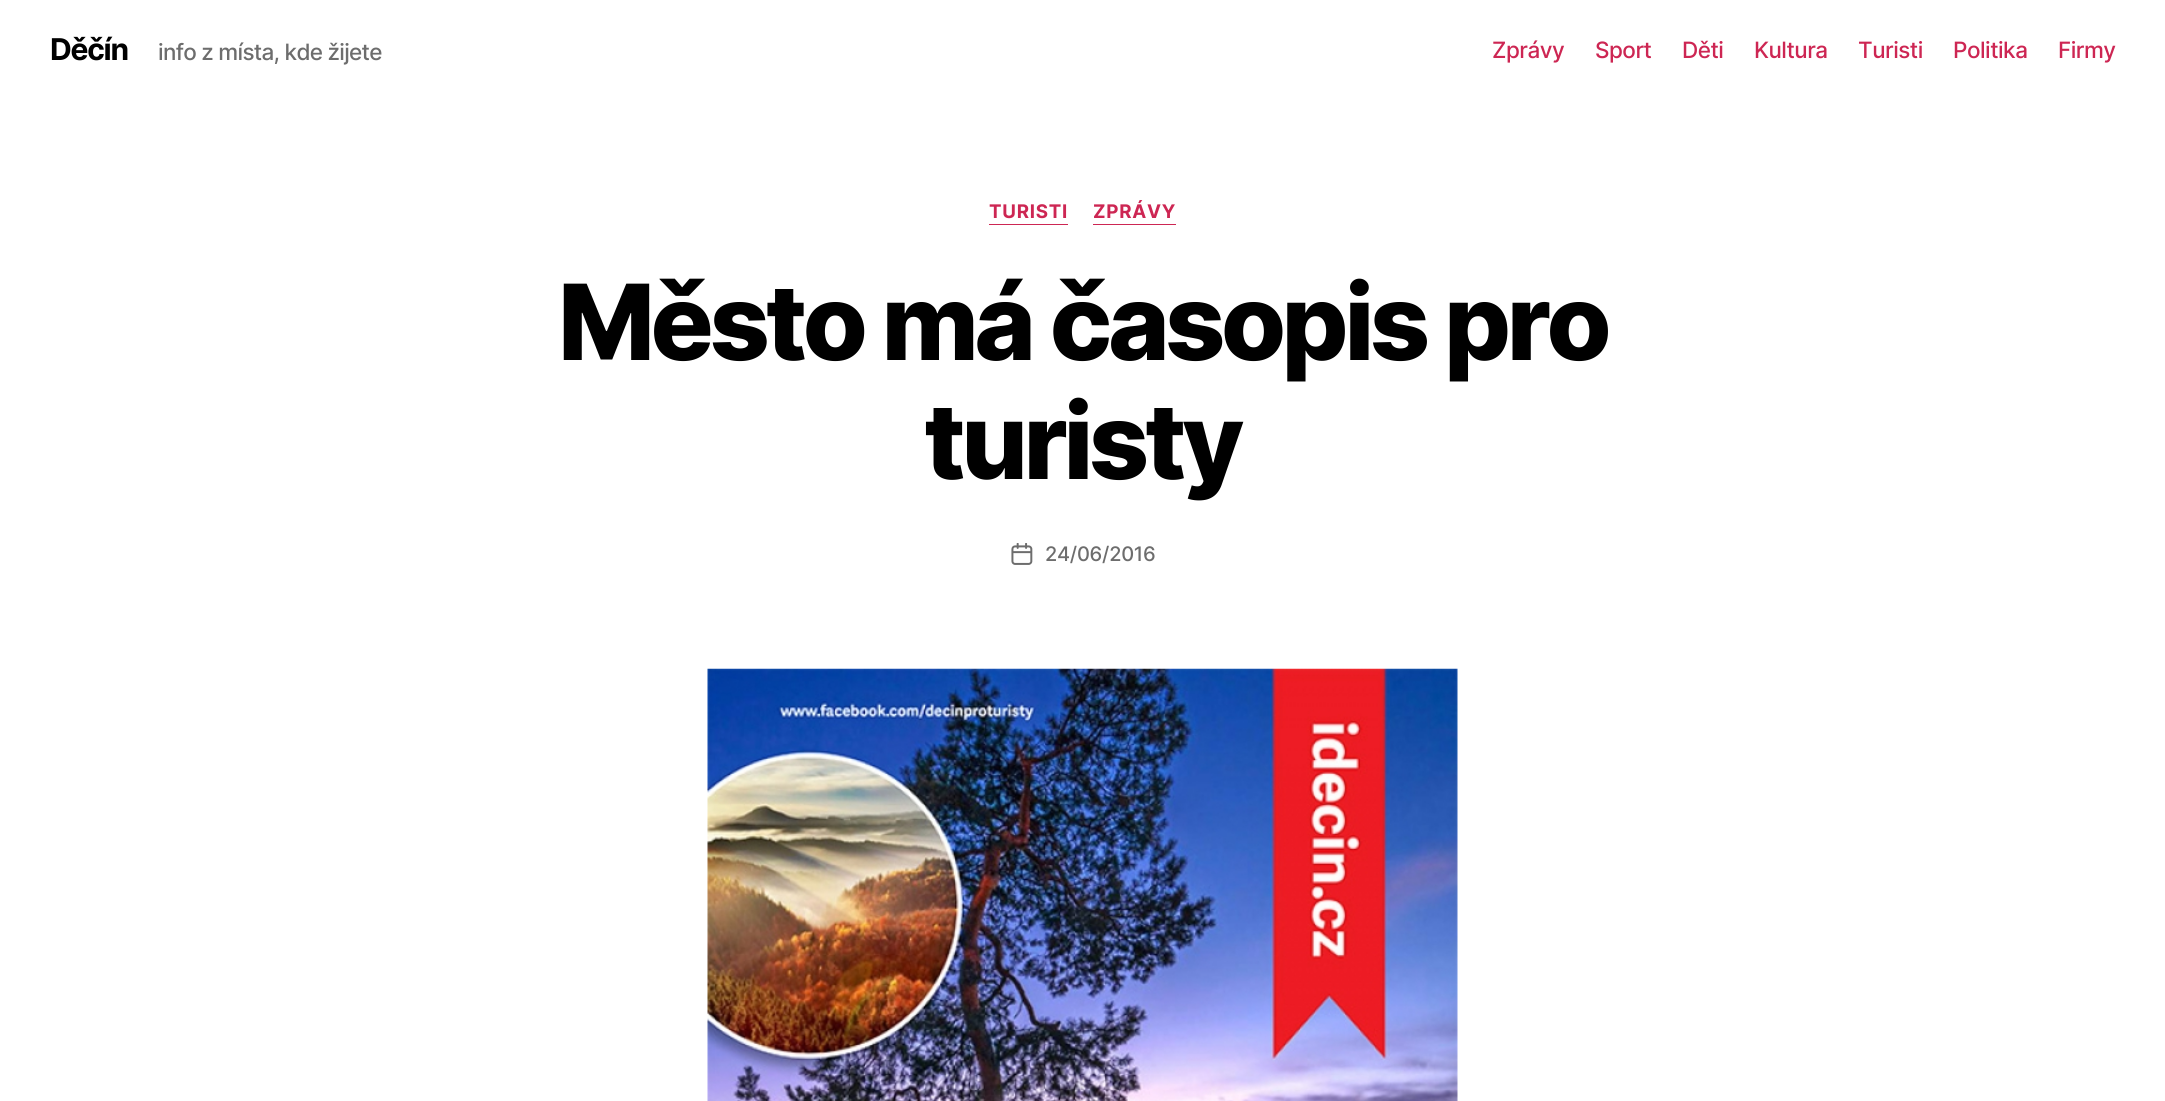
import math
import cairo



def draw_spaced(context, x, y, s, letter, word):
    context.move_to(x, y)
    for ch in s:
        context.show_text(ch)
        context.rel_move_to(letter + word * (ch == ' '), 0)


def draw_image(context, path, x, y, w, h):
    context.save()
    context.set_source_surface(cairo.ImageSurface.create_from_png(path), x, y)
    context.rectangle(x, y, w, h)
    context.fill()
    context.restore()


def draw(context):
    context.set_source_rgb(1, 1, 1)
    context.paint()
    context.set_source_rgb(205 / 255, 38 / 255, 83 / 255)
    context.rectangle(989, 224, 79, 1)
    context.fill()
    context.rectangle(1093, 224, 83, 1)
    context.fill()
    draw_image(context, "images/1.png", 1011, 543, 22, 22)
    draw_image(context, "images/2.png", 707, 668, 751, 433)
    context.select_font_face("Inter", cairo.FontSlant.NORMAL, cairo.FontWeight.BOLD)
    context.set_font_size(30)
    context.set_source_rgb(0, 0, 0)
    draw_spaced(context, 50, 60, "Děčín", -1.25, 0)
    context.select_font_face("Inter Medium")
    context.set_font_size(22.5)
    context.set_source_rgb(109 / 255, 109 / 255, 109 / 255)
    draw_spaced(context, 158, 60, "info z místa, kde žijete", -0.7, 0)
    context.set_source_rgb(205 / 255, 38 / 255, 83 / 255)
    draw_spaced(context, 1492, 58, "Zprávy", -0.5, 0)
    draw_spaced(context, 1595, 58, "Sport", -0.5, 0)
    draw_spaced(context, 1682, 58, "Děti", -0.5, 0)
    draw_spaced(context, 1754, 58, "Kultura", -0.5, 0)
    draw_spaced(context, 1858, 58, "Turisti", -0.5, 0)
    draw_spaced(context, 1953, 58, "Politika", -0.5, 0)
    draw_spaced(context, 2058, 58, "Firmy", -0.5, 0)
    context.select_font_face("Inter", cairo.FontSlant.NORMAL, cairo.FontWeight.BOLD)
    context.set_font_size(18.75)
    draw_spaced(context, 989, 218, "TURISTI", 0.75, 0)
    draw_spaced(context, 1093, 218, "ZPRÁVY", 0.75, 0)
    context.select_font_face("Inter ExtraBold")
    context.set_font_size(105)
    context.set_source_rgb(0, 0, 0)
    draw_spaced(context, 558, 360, "Město má časopis pro", -4.4, 0)
    draw_spaced(context, 924, 479, "turisty", -4.4, 0)
    context.select_font_face("Inter Medium")
    context.set_font_size(20)
    context.set_source_rgb(109 / 255, 109 / 255, 109 / 255)
    draw_spaced(context, 1045, 561, "24/06/2016", -0.25, 0)


surface = cairo.ImageSurface(cairo.Format.RGB24, 2165, 1101)
context = cairo.Context(surface)
options = cairo.FontOptions()
options.set_hint_metrics(cairo.HintMetrics.OFF)
options.set_hint_style(cairo.HintStyle.NONE)
context.set_font_options(options)
context.set_miter_limit(4)
draw(context)
surface.write_to_png("out.png")
